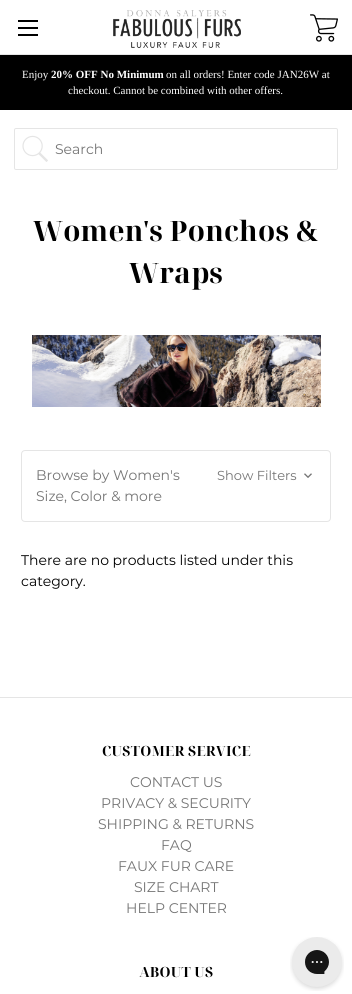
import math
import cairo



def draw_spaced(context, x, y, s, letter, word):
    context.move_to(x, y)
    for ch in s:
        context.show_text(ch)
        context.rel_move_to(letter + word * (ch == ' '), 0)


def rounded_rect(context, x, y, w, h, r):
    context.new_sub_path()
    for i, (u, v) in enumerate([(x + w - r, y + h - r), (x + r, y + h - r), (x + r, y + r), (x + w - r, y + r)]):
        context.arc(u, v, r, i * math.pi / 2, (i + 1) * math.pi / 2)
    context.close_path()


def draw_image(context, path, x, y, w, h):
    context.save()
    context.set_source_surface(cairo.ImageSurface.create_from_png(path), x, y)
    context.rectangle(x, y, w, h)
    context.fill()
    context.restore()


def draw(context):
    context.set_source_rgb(1, 1, 1)
    context.paint()
    context.set_source_rgb(229 / 255, 229 / 255, 229 / 255)
    context.rectangle(0, 54, 352, 1)
    context.fill()
    context.set_source_rgb(0, 0, 0)
    context.rectangle(18, 27, 20, 2)
    context.fill()
    context.rectangle(18, 20, 20, 2)
    context.fill()
    context.rectangle(18, 34, 20, 2)
    context.fill()
    draw_image(context, "images/1.png", 113, 10, 128, 38)
    draw_image(context, "images/2.png", 310, 14, 28, 28)
    context.rectangle(0, 55, 352, 55)
    context.fill()
    draw_image(context, "images/3.png", 22, 135, 26, 27)
    rounded_rect(context, 14.5, 128.5, 323, 41, 1.5)
    context.set_source_rgb(229 / 255, 229 / 255, 229 / 255)
    context.set_line_width(1)
    context.stroke()
    draw_image(context, "images/4.png", 32, 335, 289, 72)
    rounded_rect(context, 21.5, 450.5, 309, 71, 3.5)
    context.stroke()
    draw_image(context, "images/5.png", 304, 473, 8, 5)
    context.rectangle(0, 697, 352, 1)
    context.fill()
    draw_image(context, "images/6.png", 290, 937, 54, 54)
    context.select_font_face("Liberation Serif")
    context.set_font_size(11)
    context.set_source_rgb(1, 1, 1)
    context.move_to(22, 78)
    context.show_text("Enjoy")
    context.select_font_face("Liberation Serif", cairo.FontSlant.NORMAL, cairo.FontWeight.BOLD)
    context.move_to(51, 78)
    context.show_text("20% OFF No Minimum")
    context.select_font_face("Liberation Serif")
    context.move_to(166, 78)
    context.show_text("on all orders! Enter code JAN26W at")
    context.move_to(68, 94)
    context.show_text("checkout. Cannot be combined with other offers.")
    context.select_font_face("Montserrat")
    context.set_font_size(14)
    context.set_source_rgb(117 / 255, 117 / 255, 117 / 255)
    context.move_to(55, 154)
    context.show_text("Search")
    context.select_font_face("Noto Serif Display", cairo.FontSlant.NORMAL, cairo.FontWeight.BOLD)
    context.set_font_size(28)
    context.set_source_rgb(0, 0, 0)
    draw_spaced(context, 33, 241, "Women's Ponchos &", 0.25, 0)
    draw_spaced(context, 129, 283, "Wraps", 0.25, 0)
    context.select_font_face("Montserrat")
    context.set_font_size(14)
    context.set_source_rgb(117 / 255, 117 / 255, 117 / 255)
    context.move_to(36, 480)
    context.show_text("Browse by Women's")
    context.move_to(36, 501)
    context.show_text("Size, Color & more")
    context.set_font_size(13)
    context.move_to(217, 480)
    context.show_text("Show Filters")
    context.set_font_size(14)
    context.set_source_rgb(0, 0, 0)
    context.move_to(21, 565)
    context.show_text("There are no products listed under this")
    context.move_to(21, 586)
    context.show_text("category.")
    context.select_font_face("Noto Serif Display", cairo.FontSlant.NORMAL, cairo.FontWeight.BOLD)
    draw_spaced(context, 102, 756, "CUSTOMER SERVICE", 0.25, 0)
    context.select_font_face("Montserrat")
    context.set_source_rgb(117 / 255, 117 / 255, 117 / 255)
    context.move_to(130, 787)
    context.show_text("CONTACT US")
    context.move_to(101, 808)
    context.show_text("PRIVACY & SECURITY")
    context.move_to(98, 829)
    context.show_text("SHIPPING & RETURNS")
    context.move_to(161, 850)
    context.show_text("FAQ")
    context.move_to(118, 871)
    context.show_text("FAUX FUR CARE")
    context.move_to(134, 892)
    context.show_text("SIZE CHART")
    context.move_to(126, 913)
    context.show_text("HELP CENTER")
    context.select_font_face("Noto Serif Display", cairo.FontSlant.NORMAL, cairo.FontWeight.BOLD)
    context.set_source_rgb(0, 0, 0)
    draw_spaced(context, 139, 977, "ABOUT US", 0.25, 0)


surface = cairo.ImageSurface(cairo.Format.RGB24, 352, 994)
context = cairo.Context(surface)
options = cairo.FontOptions()
options.set_hint_metrics(cairo.HintMetrics.OFF)
options.set_hint_style(cairo.HintStyle.NONE)
context.set_font_options(options)
context.set_miter_limit(4)
draw(context)
surface.write_to_png("out.png")
